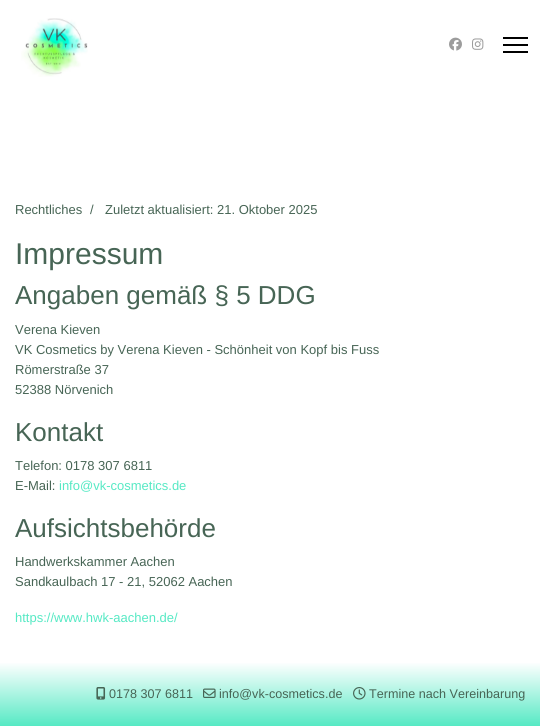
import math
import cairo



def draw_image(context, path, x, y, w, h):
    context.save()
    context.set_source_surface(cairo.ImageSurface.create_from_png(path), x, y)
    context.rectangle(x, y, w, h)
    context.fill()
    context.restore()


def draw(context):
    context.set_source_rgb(1, 1, 1)
    context.paint()
    draw_image(context, "images/1.png", 21, 18, 67, 59)
    draw_image(context, "images/2.png", 449, 37, 13, 14)
    draw_image(context, "images/3.png", 472, 38, 12, 12)
    context.set_source_rgb(0, 0, 0)
    context.rectangle(503, 37, 25, 2)
    context.fill()
    context.rectangle(503, 44, 25, 2)
    context.fill()
    context.rectangle(503, 51, 25, 2)
    context.fill()
    gradient = cairo.LinearGradient(270, 662, 270, 726)
    gradient.add_color_stop_rgba(0, 1, 1, 1, 1)
    gradient.add_color_stop_rgba(1, 86 / 255, 233 / 255, 196 / 255, 1)
    context.set_source(gradient)
    context.rectangle(0, 663, 540, 63)
    context.fill()
    draw_image(context, "images/4.png", 96, 687, 10, 13)
    draw_image(context, "images/5.png", 203, 688, 13, 10)
    draw_image(context, "images/6.png", 353, 687, 13, 13)
    context.select_font_face("Liberation Sans")
    context.set_font_size(13)
    context.set_source_rgb(71 / 255, 101 / 255, 85 / 255)
    context.move_to(15, 214)
    context.show_text("Rechtliches")
    context.move_to(90, 214)
    context.show_text("/")
    context.move_to(105, 214)
    context.show_text("Zuletzt aktualisiert: 21. Oktober 2025")
    context.set_font_size(30)
    context.move_to(15, 264)
    context.show_text("Impressum")
    context.set_font_size(26)
    context.move_to(15, 304)
    context.show_text("Angaben gemäß § 5 DDG")
    context.set_font_size(13)
    context.move_to(15, 334)
    context.show_text("Verena Kieven")
    context.move_to(15, 354)
    context.show_text("VK Cosmetics by Verena Kieven - Schönheit von Kopf bis Fuss")
    context.move_to(15, 374)
    context.show_text("Römerstraße 37")
    context.move_to(15, 394)
    context.show_text("52388 Nörvenich")
    context.set_font_size(26)
    context.move_to(15, 441)
    context.show_text("Kontakt")
    context.set_font_size(13)
    context.move_to(15, 470)
    context.show_text("Telefon: 0178 307 6811")
    context.move_to(15, 490)
    context.show_text("E-Mail:")
    context.set_source_rgb(86 / 255, 233 / 255, 196 / 255)
    context.move_to(59, 490)
    context.show_text("info@vk-cosmetics.de")
    context.set_font_size(26)
    context.set_source_rgb(71 / 255, 101 / 255, 85 / 255)
    context.move_to(15, 537)
    context.show_text("Aufsichtsbehörde")
    context.set_font_size(13)
    context.move_to(15, 566)
    context.show_text("Handwerkskammer Aachen")
    context.move_to(15, 586)
    context.show_text("Sandkaulbach 17 - 21, 52062 Aachen")
    context.set_source_rgb(86 / 255, 233 / 255, 196 / 255)
    context.move_to(15, 622)
    context.show_text("https://www.hwk-aachen.de/")
    context.set_font_size(12.6)
    context.set_source_rgb(71 / 255, 101 / 255, 85 / 255)
    context.move_to(109, 698)
    context.show_text("0178 307 6811")
    context.move_to(219, 698)
    context.show_text("info@vk-cosmetics.de")
    context.move_to(369, 698)
    context.show_text("Termine nach Vereinbarung")


surface = cairo.ImageSurface(cairo.Format.RGB24, 540, 726)
context = cairo.Context(surface)
options = cairo.FontOptions()
options.set_hint_metrics(cairo.HintMetrics.OFF)
options.set_hint_style(cairo.HintStyle.NONE)
context.set_font_options(options)
context.set_miter_limit(4)
draw(context)
surface.write_to_png("out.png")
